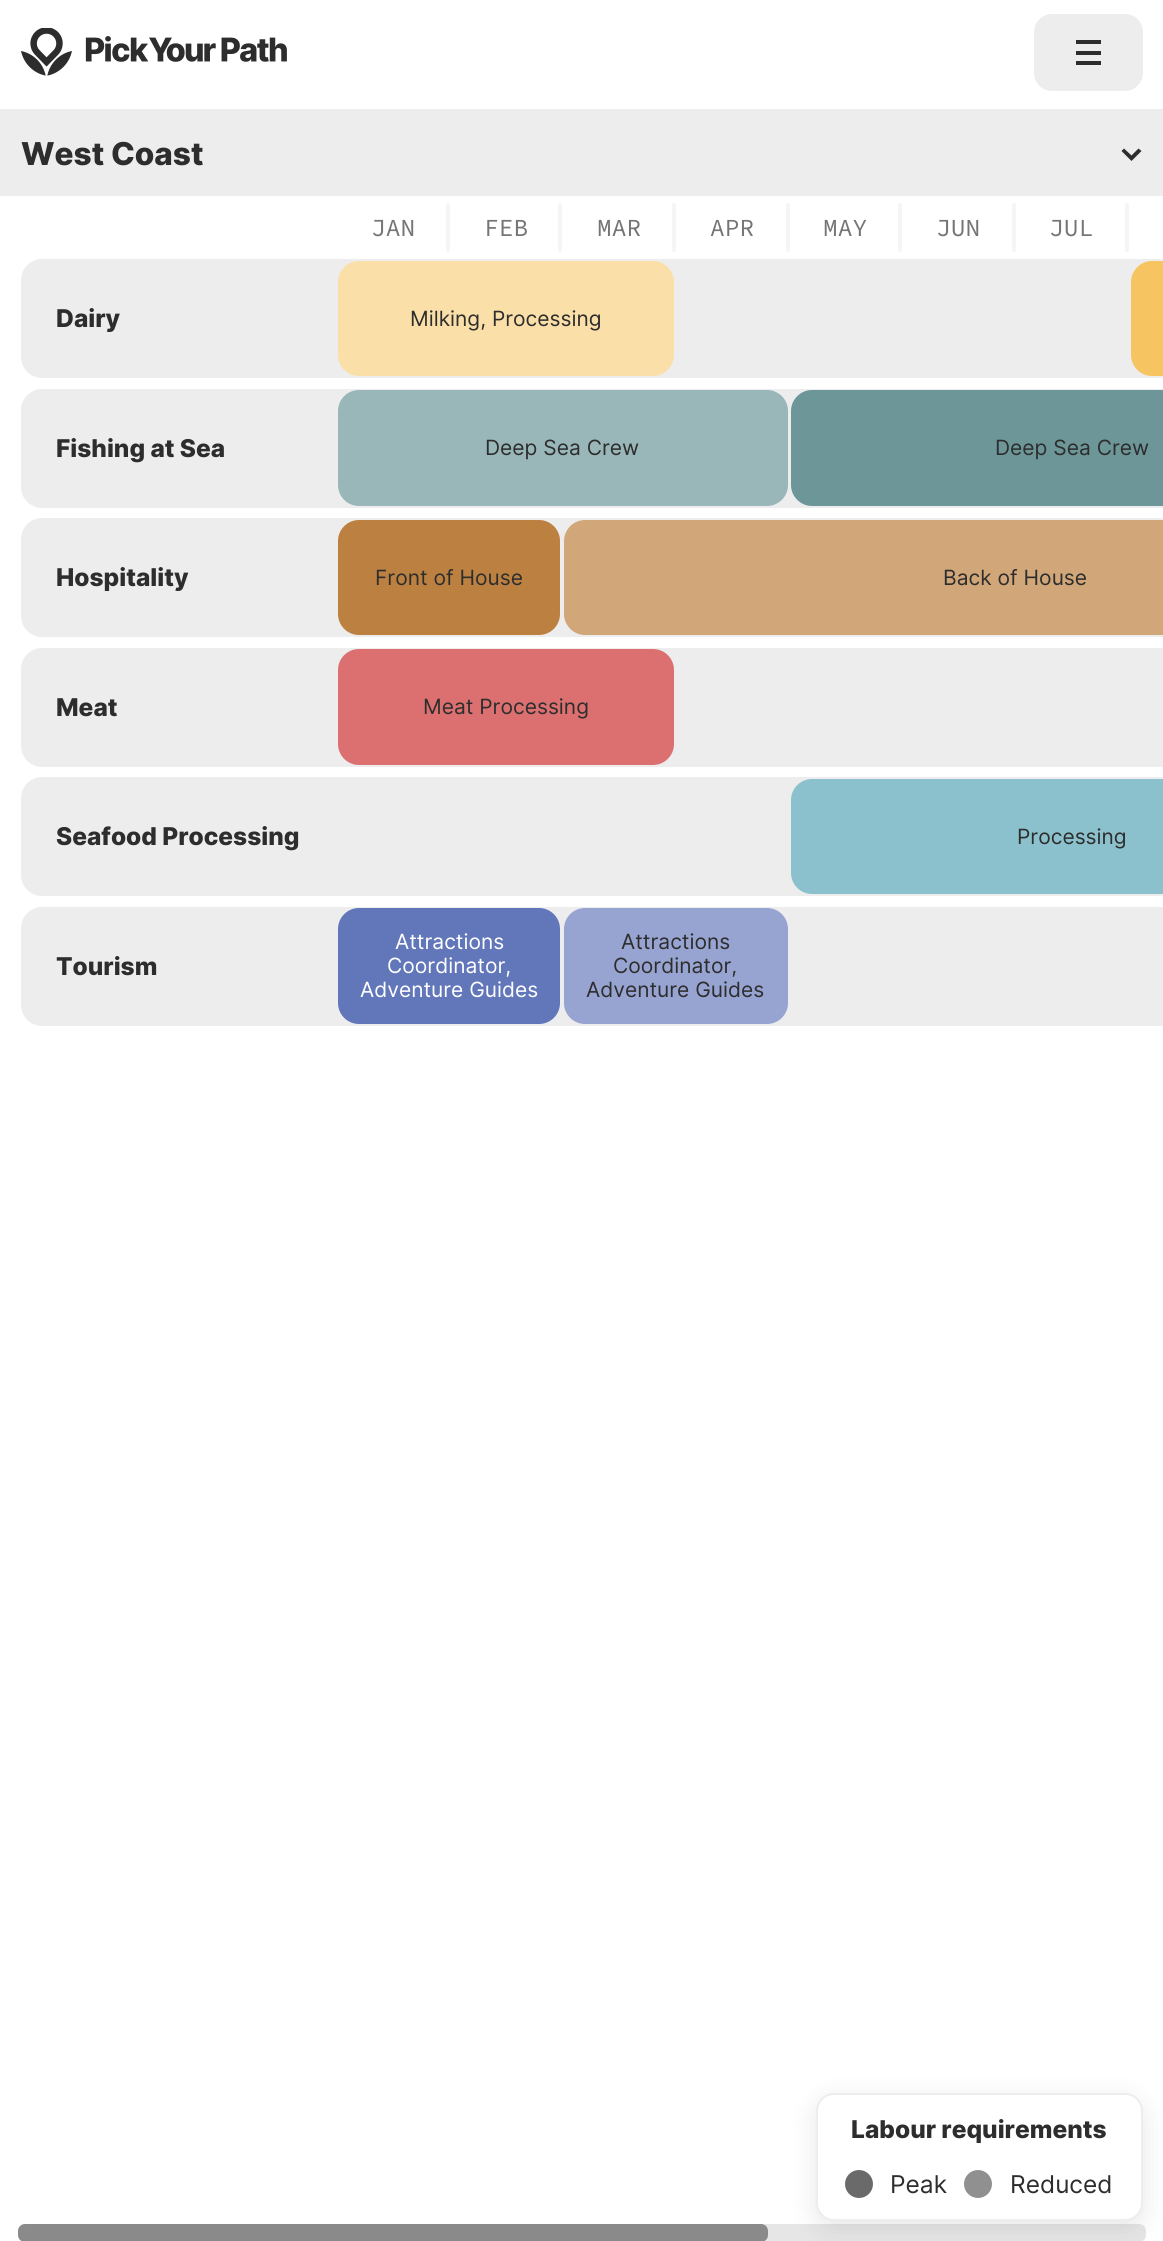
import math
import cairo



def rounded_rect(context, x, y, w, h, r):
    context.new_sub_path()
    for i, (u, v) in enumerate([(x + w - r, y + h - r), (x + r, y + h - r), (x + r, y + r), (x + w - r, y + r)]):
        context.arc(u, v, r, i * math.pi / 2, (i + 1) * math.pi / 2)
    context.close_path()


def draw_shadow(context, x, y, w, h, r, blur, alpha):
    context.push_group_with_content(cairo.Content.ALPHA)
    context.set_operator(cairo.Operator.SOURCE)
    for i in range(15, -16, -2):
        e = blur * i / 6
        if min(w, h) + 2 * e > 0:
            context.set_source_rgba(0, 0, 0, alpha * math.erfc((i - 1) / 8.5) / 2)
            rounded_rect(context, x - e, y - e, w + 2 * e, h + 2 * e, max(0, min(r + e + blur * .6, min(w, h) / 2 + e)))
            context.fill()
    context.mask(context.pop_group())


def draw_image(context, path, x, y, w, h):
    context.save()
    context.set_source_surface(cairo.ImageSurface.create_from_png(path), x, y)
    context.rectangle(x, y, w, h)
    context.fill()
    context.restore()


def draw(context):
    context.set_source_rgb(1, 1, 1)
    context.paint()
    context.set_source_rgb(237 / 255, 237 / 255, 237 / 255)
    context.new_path()
    context.move_to(0, 108)
    context.line_to(0, 114)
    context.line_to(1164, 114)
    context.line_to(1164, 2)
    context.line_to(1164, 108)
    context.close_path()
    context.fill()
    context.set_source_rgb(1, 1, 1)
    context.rectangle(0, 108, 1163, 1)
    context.fill()
    draw_image(context, "images/1.png", 21, 28, 266, 48)
    context.set_source_rgb(237 / 255, 237 / 255, 238 / 255)
    rounded_rect(context, 1034, 14, 109, 77, 18)
    context.fill()
    context.set_source_rgb(45 / 255, 45 / 255, 45 / 255)
    context.rectangle(1076, 40, 25, 4)
    context.fill()
    context.rectangle(1076, 51, 25, 4)
    context.fill()
    context.rectangle(1076, 61, 25, 4)
    context.fill()
    context.set_source_rgb(237 / 255, 237 / 255, 238 / 255)
    context.rectangle(0, 114, 1163, 82)
    context.fill()
    context.set_source_rgb(45 / 255, 45 / 255, 45 / 255)
    context.set_fill_rule(cairo.FillRule.EVEN_ODD)
    context.new_path()
    context.move_to(1121.5, 151)
    context.line_to(1124, 148.5)
    context.line_to(1131.5, 155.5)
    context.line_to(1138.5, 148.5)
    context.line_to(1141.5, 151)
    context.line_to(1131.5, 161)
    context.close_path()
    context.fill()
    context.set_source_rgb(230 / 255, 230 / 255, 230 / 255)
    rounded_rect(context, 18, 2224, 1128, 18, 7)
    context.fill()
    context.set_source_rgb(0, 0, 0)
    draw_shadow(context, 816, 2100, 327, 128, 18, 13, 0.1)
    context.set_source_rgb(1, 1, 1)
    rounded_rect(context, 817, 2094, 325, 126, 17)
    context.fill_preserve()
    context.set_source_rgb(237 / 255, 237 / 255, 238 / 255)
    context.stroke()
    context.set_source_rgb(106 / 255, 106 / 255, 106 / 255)
    context.arc(859, 2184, 14, 0, 2 * math.pi)
    context.fill()
    context.set_source_rgb(144 / 255, 144 / 255, 144 / 255)
    context.arc(978, 2184, 14, 0, 2 * math.pi)
    context.fill()
    context.set_source_rgb(245 / 255, 245 / 255, 245 / 255)
    rounded_rect(context, 446, 203, 4, 49, 2)
    context.fill()
    rounded_rect(context, 558, 203, 4, 49, 2)
    context.fill()
    rounded_rect(context, 672, 203, 4, 49, 2)
    context.fill()
    rounded_rect(context, 786, 203, 4, 49, 2)
    context.fill()
    rounded_rect(context, 898, 203, 4, 49, 2)
    context.fill()
    rounded_rect(context, 1012, 203, 4, 49, 2)
    context.fill()
    rounded_rect(context, 1125, 203, 4, 49, 2)
    context.fill()
    context.set_source_rgb(237 / 255, 237 / 255, 238 / 255)
    context.new_path()
    context.move_to(42, 259)
    context.line_to(336, 259)
    context.line_to(336, 378)
    context.line_to(42, 378)
    context.curve_to(30.5, 378, 21, 368.5, 21, 357)
    context.line_to(21, 280)
    context.curve_to(21, 268.5, 30.5, 259, 42, 259)
    context.close_path()
    context.fill()
    context.rectangle(336, 259, 827, 119)
    context.fill()
    context.set_source_rgb(250 / 255, 223 / 255, 169 / 255)
    rounded_rect(context, 338, 261, 336, 115, 21)
    context.fill()
    context.set_source_rgb(246 / 255, 196 / 255, 97 / 255)
    context.new_path()
    context.move_to(1152, 261)
    context.line_to(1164, 261)
    context.line_to(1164, 376)
    context.line_to(1152, 376)
    context.curve_to(1140.5, 376, 1131, 366.5, 1131, 355)
    context.line_to(1131, 282)
    context.curve_to(1131, 270.5, 1140.5, 261, 1152, 261)
    context.close_path()
    context.fill()
    context.set_source_rgb(237 / 255, 237 / 255, 238 / 255)
    context.new_path()
    context.move_to(42, 389)
    context.line_to(336, 389)
    context.line_to(336, 508)
    context.line_to(42, 508)
    context.curve_to(30.5, 508, 21, 498.5, 21, 487)
    context.line_to(21, 410)
    context.curve_to(21, 398.5, 30.5, 389, 42, 389)
    context.close_path()
    context.fill()
    context.rectangle(336, 389, 827, 119)
    context.fill()
    context.set_source_rgb(153 / 255, 182 / 255, 184 / 255)
    rounded_rect(context, 338, 390, 450, 116, 21)
    context.fill()
    context.set_source_rgb(108 / 255, 150 / 255, 152 / 255)
    context.new_path()
    context.move_to(812, 390)
    context.line_to(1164, 390)
    context.line_to(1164, 506)
    context.line_to(812, 506)
    context.curve_to(800.5, 506, 791, 496.5, 791, 485)
    context.line_to(791, 411)
    context.curve_to(791, 399.5, 800.5, 390, 812, 390)
    context.close_path()
    context.fill()
    context.set_source_rgb(237 / 255, 237 / 255, 238 / 255)
    context.new_path()
    context.move_to(42, 518)
    context.line_to(336, 518)
    context.line_to(336, 637)
    context.line_to(42, 637)
    context.curve_to(30.5, 637, 21, 627.5, 21, 616)
    context.line_to(21, 539)
    context.curve_to(21, 527.5, 30.5, 518, 42, 518)
    context.close_path()
    context.fill()
    context.rectangle(336, 518, 827, 119)
    context.fill()
    context.set_source_rgb(188 / 255, 129 / 255, 65 / 255)
    rounded_rect(context, 338, 520, 222, 115, 21)
    context.fill()
    context.set_source_rgb(209 / 255, 167 / 255, 121 / 255)
    context.new_path()
    context.move_to(585, 520)
    context.line_to(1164, 520)
    context.line_to(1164, 635)
    context.line_to(585, 635)
    context.curve_to(573.5, 635, 564, 625.5, 564, 614)
    context.line_to(564, 541)
    context.curve_to(564, 529.5, 573.5, 520, 585, 520)
    context.close_path()
    context.fill()
    context.set_source_rgb(237 / 255, 237 / 255, 238 / 255)
    context.new_path()
    context.move_to(42, 648)
    context.line_to(336, 648)
    context.line_to(336, 767)
    context.line_to(42, 767)
    context.curve_to(30.5, 767, 21, 757.5, 21, 746)
    context.line_to(21, 669)
    context.curve_to(21, 657.5, 30.5, 648, 42, 648)
    context.close_path()
    context.fill()
    context.rectangle(336, 648, 827, 119)
    context.fill()
    context.set_source_rgb(220 / 255, 112 / 255, 112 / 255)
    rounded_rect(context, 338, 649, 336, 116, 21)
    context.fill()
    context.set_source_rgb(237 / 255, 237 / 255, 238 / 255)
    context.new_path()
    context.move_to(42, 777)
    context.line_to(336, 777)
    context.line_to(336, 896)
    context.line_to(42, 896)
    context.curve_to(30.5, 896, 21, 886.5, 21, 875)
    context.line_to(21, 798)
    context.curve_to(21, 786.5, 30.5, 777, 42, 777)
    context.close_path()
    context.fill()
    context.rectangle(336, 777, 827, 119)
    context.fill()
    context.set_source_rgb(139 / 255, 193 / 255, 204 / 255)
    context.new_path()
    context.move_to(812, 779)
    context.line_to(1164, 779)
    context.line_to(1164, 894)
    context.line_to(812, 894)
    context.curve_to(800.5, 894, 791, 884.5, 791, 873)
    context.line_to(791, 800)
    context.curve_to(791, 788.5, 800.5, 779, 812, 779)
    context.close_path()
    context.fill()
    context.set_source_rgb(237 / 255, 237 / 255, 238 / 255)
    context.new_path()
    context.move_to(42, 907)
    context.line_to(336, 907)
    context.line_to(336, 1026)
    context.line_to(42, 1026)
    context.curve_to(30.5, 1026, 21, 1016.5, 21, 1005)
    context.line_to(21, 928)
    context.curve_to(21, 916.5, 30.5, 907, 42, 907)
    context.close_path()
    context.fill()
    context.rectangle(336, 907, 827, 119)
    context.fill()
    context.set_source_rgb(98 / 255, 118 / 255, 186 / 255)
    rounded_rect(context, 338, 908, 222, 116, 21)
    context.fill()
    context.set_source_rgb(151 / 255, 164 / 255, 209 / 255)
    rounded_rect(context, 564, 908, 224, 116, 21)
    context.fill()
    context.set_source_rgba(0, 0, 0, 0.4)
    rounded_rect(context, 18, 2224, 750, 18, 7)
    context.fill()
    context.select_font_face("Inter ExtraBold")
    context.set_font_size(31.5)
    context.set_source_rgb(45 / 255, 45 / 255, 45 / 255)
    context.move_to(21, 165)
    context.show_text("West Coast")
    context.set_font_size(24.5)
    context.move_to(851, 2138)
    context.show_text("Labour requirements")
    context.select_font_face("Inter")
    context.move_to(890, 2193)
    context.show_text("Peak")
    context.move_to(1010, 2193)
    context.show_text("Reduced")
    context.select_font_face("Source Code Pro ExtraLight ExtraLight")
    context.set_source_rgb(117 / 255, 117 / 255, 117 / 255)
    context.move_to(371, 236)
    context.show_text("JAN")
    context.move_to(484, 236)
    context.show_text("FEB")
    context.move_to(597, 236)
    context.show_text("MAR")
    context.move_to(710, 236)
    context.show_text("APR")
    context.move_to(823, 236)
    context.show_text("MAY")
    context.move_to(936, 236)
    context.show_text("JUN")
    context.move_to(1049, 236)
    context.show_text("JUL")
    context.select_font_face("Inter ExtraBold")
    context.set_source_rgb(45 / 255, 45 / 255, 45 / 255)
    context.move_to(56, 327)
    context.show_text("Dairy")
    context.select_font_face("Inter")
    context.set_font_size(21)
    context.move_to(410, 326)
    context.show_text("Milking, Processing")
    context.select_font_face("Inter ExtraBold")
    context.set_font_size(24.5)
    context.move_to(56, 457)
    context.show_text("Fishing at Sea")
    context.select_font_face("Inter")
    context.set_font_size(21)
    context.move_to(485, 455)
    context.show_text("Deep Sea Crew")
    context.move_to(995, 455)
    context.show_text("Deep Sea Crew")
    context.select_font_face("Inter ExtraBold")
    context.set_font_size(24.5)
    context.move_to(56, 586)
    context.show_text("Hospitality")
    context.select_font_face("Inter")
    context.set_font_size(21)
    context.move_to(375, 585)
    context.show_text("Front of House")
    context.move_to(943, 585)
    context.show_text("Back of House")
    context.select_font_face("Inter ExtraBold")
    context.set_font_size(24.5)
    context.move_to(56, 716)
    context.show_text("Meat")
    context.select_font_face("Inter")
    context.set_font_size(21)
    context.move_to(423, 714)
    context.show_text("Meat Processing")
    context.select_font_face("Inter ExtraBold")
    context.set_font_size(24.5)
    context.move_to(56, 845)
    context.show_text("Seafood Processing")
    context.select_font_face("Inter")
    context.set_font_size(21)
    context.move_to(1017, 844)
    context.show_text("Processing")
    context.select_font_face("Inter ExtraBold")
    context.set_font_size(24.5)
    context.move_to(56, 975)
    context.show_text("Tourism")
    context.select_font_face("Inter")
    context.set_font_size(21)
    context.set_source_rgb(1, 1, 1)
    context.move_to(395, 949)
    context.show_text("Attractions")
    context.move_to(387, 973)
    context.show_text("Coordinator,")
    context.move_to(360, 997)
    context.show_text("Adventure Guides")
    context.set_source_rgb(45 / 255, 45 / 255, 45 / 255)
    context.move_to(621, 949)
    context.show_text("Attractions")
    context.move_to(613, 973)
    context.show_text("Coordinator,")
    context.move_to(586, 997)
    context.show_text("Adventure Guides")


surface = cairo.ImageSurface(cairo.Format.RGB24, 1163, 2241)
context = cairo.Context(surface)
options = cairo.FontOptions()
options.set_hint_metrics(cairo.HintMetrics.OFF)
options.set_hint_style(cairo.HintStyle.NONE)
context.set_font_options(options)
context.set_miter_limit(4)
draw(context)
surface.write_to_png("out.png")
